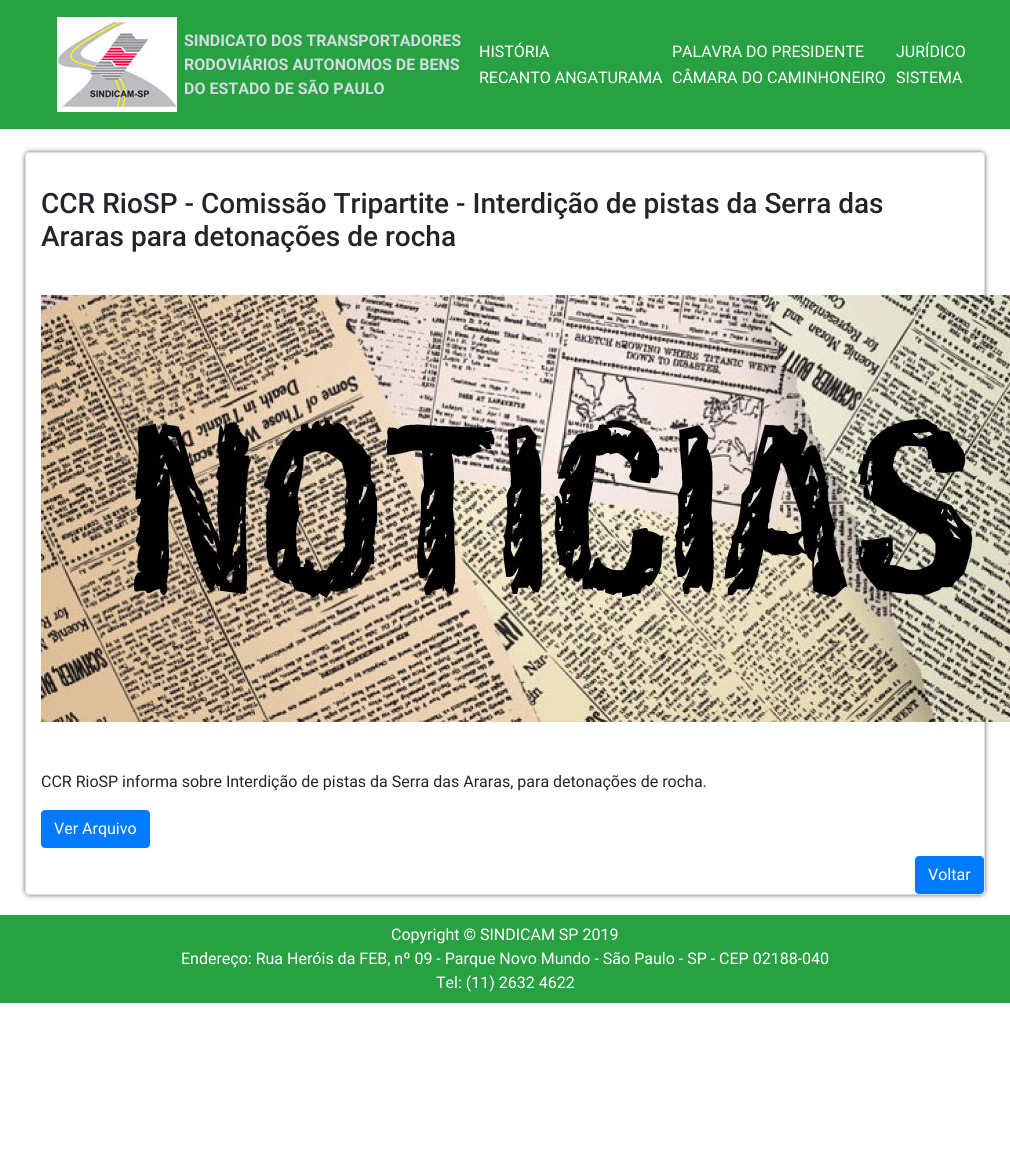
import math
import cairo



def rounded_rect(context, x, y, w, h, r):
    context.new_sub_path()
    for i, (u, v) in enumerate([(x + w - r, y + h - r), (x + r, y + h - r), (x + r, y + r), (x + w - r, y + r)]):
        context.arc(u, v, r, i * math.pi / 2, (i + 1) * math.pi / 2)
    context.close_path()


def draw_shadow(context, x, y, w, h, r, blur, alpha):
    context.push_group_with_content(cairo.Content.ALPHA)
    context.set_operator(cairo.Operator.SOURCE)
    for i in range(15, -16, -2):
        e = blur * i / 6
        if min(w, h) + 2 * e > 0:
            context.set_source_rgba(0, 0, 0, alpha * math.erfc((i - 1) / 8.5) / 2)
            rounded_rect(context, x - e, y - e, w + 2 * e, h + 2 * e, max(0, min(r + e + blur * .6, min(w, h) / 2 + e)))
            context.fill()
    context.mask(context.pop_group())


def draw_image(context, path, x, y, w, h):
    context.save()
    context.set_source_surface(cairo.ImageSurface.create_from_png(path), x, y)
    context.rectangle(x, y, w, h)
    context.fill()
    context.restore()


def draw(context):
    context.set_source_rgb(1, 1, 1)
    context.paint()
    context.set_source_rgb(40 / 255, 161 / 255, 66 / 255)
    context.rectangle(0, 0, 1010, 129)
    context.fill()
    draw_image(context, "images/1.png", 57, 17, 120, 95)
    context.save()
    context.set_fill_rule(cairo.FillRule.EVEN_ODD)
    context.new_path()
    context.move_to(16, 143)
    context.line_to(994, 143)
    context.line_to(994, 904)
    context.line_to(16, 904)
    context.close_path()
    context.move_to(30, 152)
    context.line_to(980, 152)
    context.curve_to(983, 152, 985, 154, 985, 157)
    context.line_to(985, 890)
    context.curve_to(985, 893, 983, 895, 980, 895)
    context.line_to(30, 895)
    context.curve_to(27, 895, 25, 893, 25, 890)
    context.line_to(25, 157)
    context.curve_to(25, 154, 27, 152, 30, 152)
    context.close_path()
    context.clip()
    context.set_source_rgb(0, 0, 0)
    draw_shadow(context, 25, 152, 960, 743, 5, 2.5, 0.6)
    context.restore()
    rounded_rect(context, 25.5, 152.5, 959, 742, 4.5)
    context.set_source_rgb(221 / 255, 221 / 255, 221 / 255)
    context.set_line_width(1)
    context.stroke()
    draw_image(context, "images/2.png", 41, 295, 969, 427)
    context.set_source_rgb(0, 123 / 255, 1)
    rounded_rect(context, 41.5, 810.5, 108, 37, 3.5)
    context.fill_preserve()
    context.stroke()
    rounded_rect(context, 915.5, 856.5, 68, 37, 3.5)
    context.fill_preserve()
    context.stroke()
    context.set_source_rgb(40 / 255, 161 / 255, 66 / 255)
    context.rectangle(0, 915, 1010, 88)
    context.fill()
    context.select_font_face("Roboto", cairo.FontSlant.NORMAL, cairo.FontWeight.BOLD)
    context.set_font_size(16)
    context.set_source_rgb(209 / 255, 220 / 255, 224 / 255)
    context.move_to(184, 46)
    context.show_text("SINDICATO DOS TRANSPORTADORES")
    context.move_to(184, 70)
    context.show_text("RODOVIÁRIOS AUTONOMOS DE BENS")
    context.move_to(184, 94)
    context.show_text("DO ESTADO DE SÃO PAULO")
    context.select_font_face("Roboto")
    context.set_source_rgb(1, 1, 1)
    context.move_to(479, 57)
    context.show_text("HISTÓRIA")
    context.move_to(672, 57)
    context.show_text("PALAVRA DO PRESIDENTE")
    context.move_to(896, 57)
    context.show_text("JURÍDICO")
    context.move_to(479, 83)
    context.show_text("RECANTO ANGATURAMA")
    context.move_to(672, 83)
    context.show_text("CÂMARA DO CAMINHONEIRO")
    context.move_to(896, 83)
    context.show_text("SISTEMA")
    context.select_font_face("Roboto Medium")
    context.set_font_size(28)
    context.set_source_rgb(33 / 255, 37 / 255, 41 / 255)
    context.move_to(41, 213)
    context.show_text("CCR RioSP - Comissão Tripartite - Interdição de pistas da Serra das")
    context.move_to(41, 246)
    context.show_text("Araras para detonações de rocha")
    context.select_font_face("Roboto")
    context.set_font_size(16)
    context.move_to(41, 787)
    context.show_text("CCR RioSP informa sobre Interdição de pistas da Serra das Araras, para detonações de rocha.")
    context.set_source_rgb(1, 1, 1)
    context.move_to(54, 834)
    context.show_text("Ver Arquivo")
    context.move_to(928, 880)
    context.show_text("Voltar")
    context.move_to(391, 940)
    context.show_text("Copyright © SINDICAM SP 2019")
    context.move_to(181, 964)
    context.show_text("Endereço: Rua Heróis da FEB, nº 09 - Parque Novo Mundo - São Paulo - SP - CEP 02188-040")
    context.move_to(436, 988)
    context.show_text("Tel: (11) 2632 4622")


surface = cairo.ImageSurface(cairo.Format.RGB24, 1010, 1158)
context = cairo.Context(surface)
options = cairo.FontOptions()
options.set_hint_metrics(cairo.HintMetrics.OFF)
options.set_hint_style(cairo.HintStyle.NONE)
context.set_font_options(options)
context.set_miter_limit(4)
draw(context)
surface.write_to_png("out.png")
